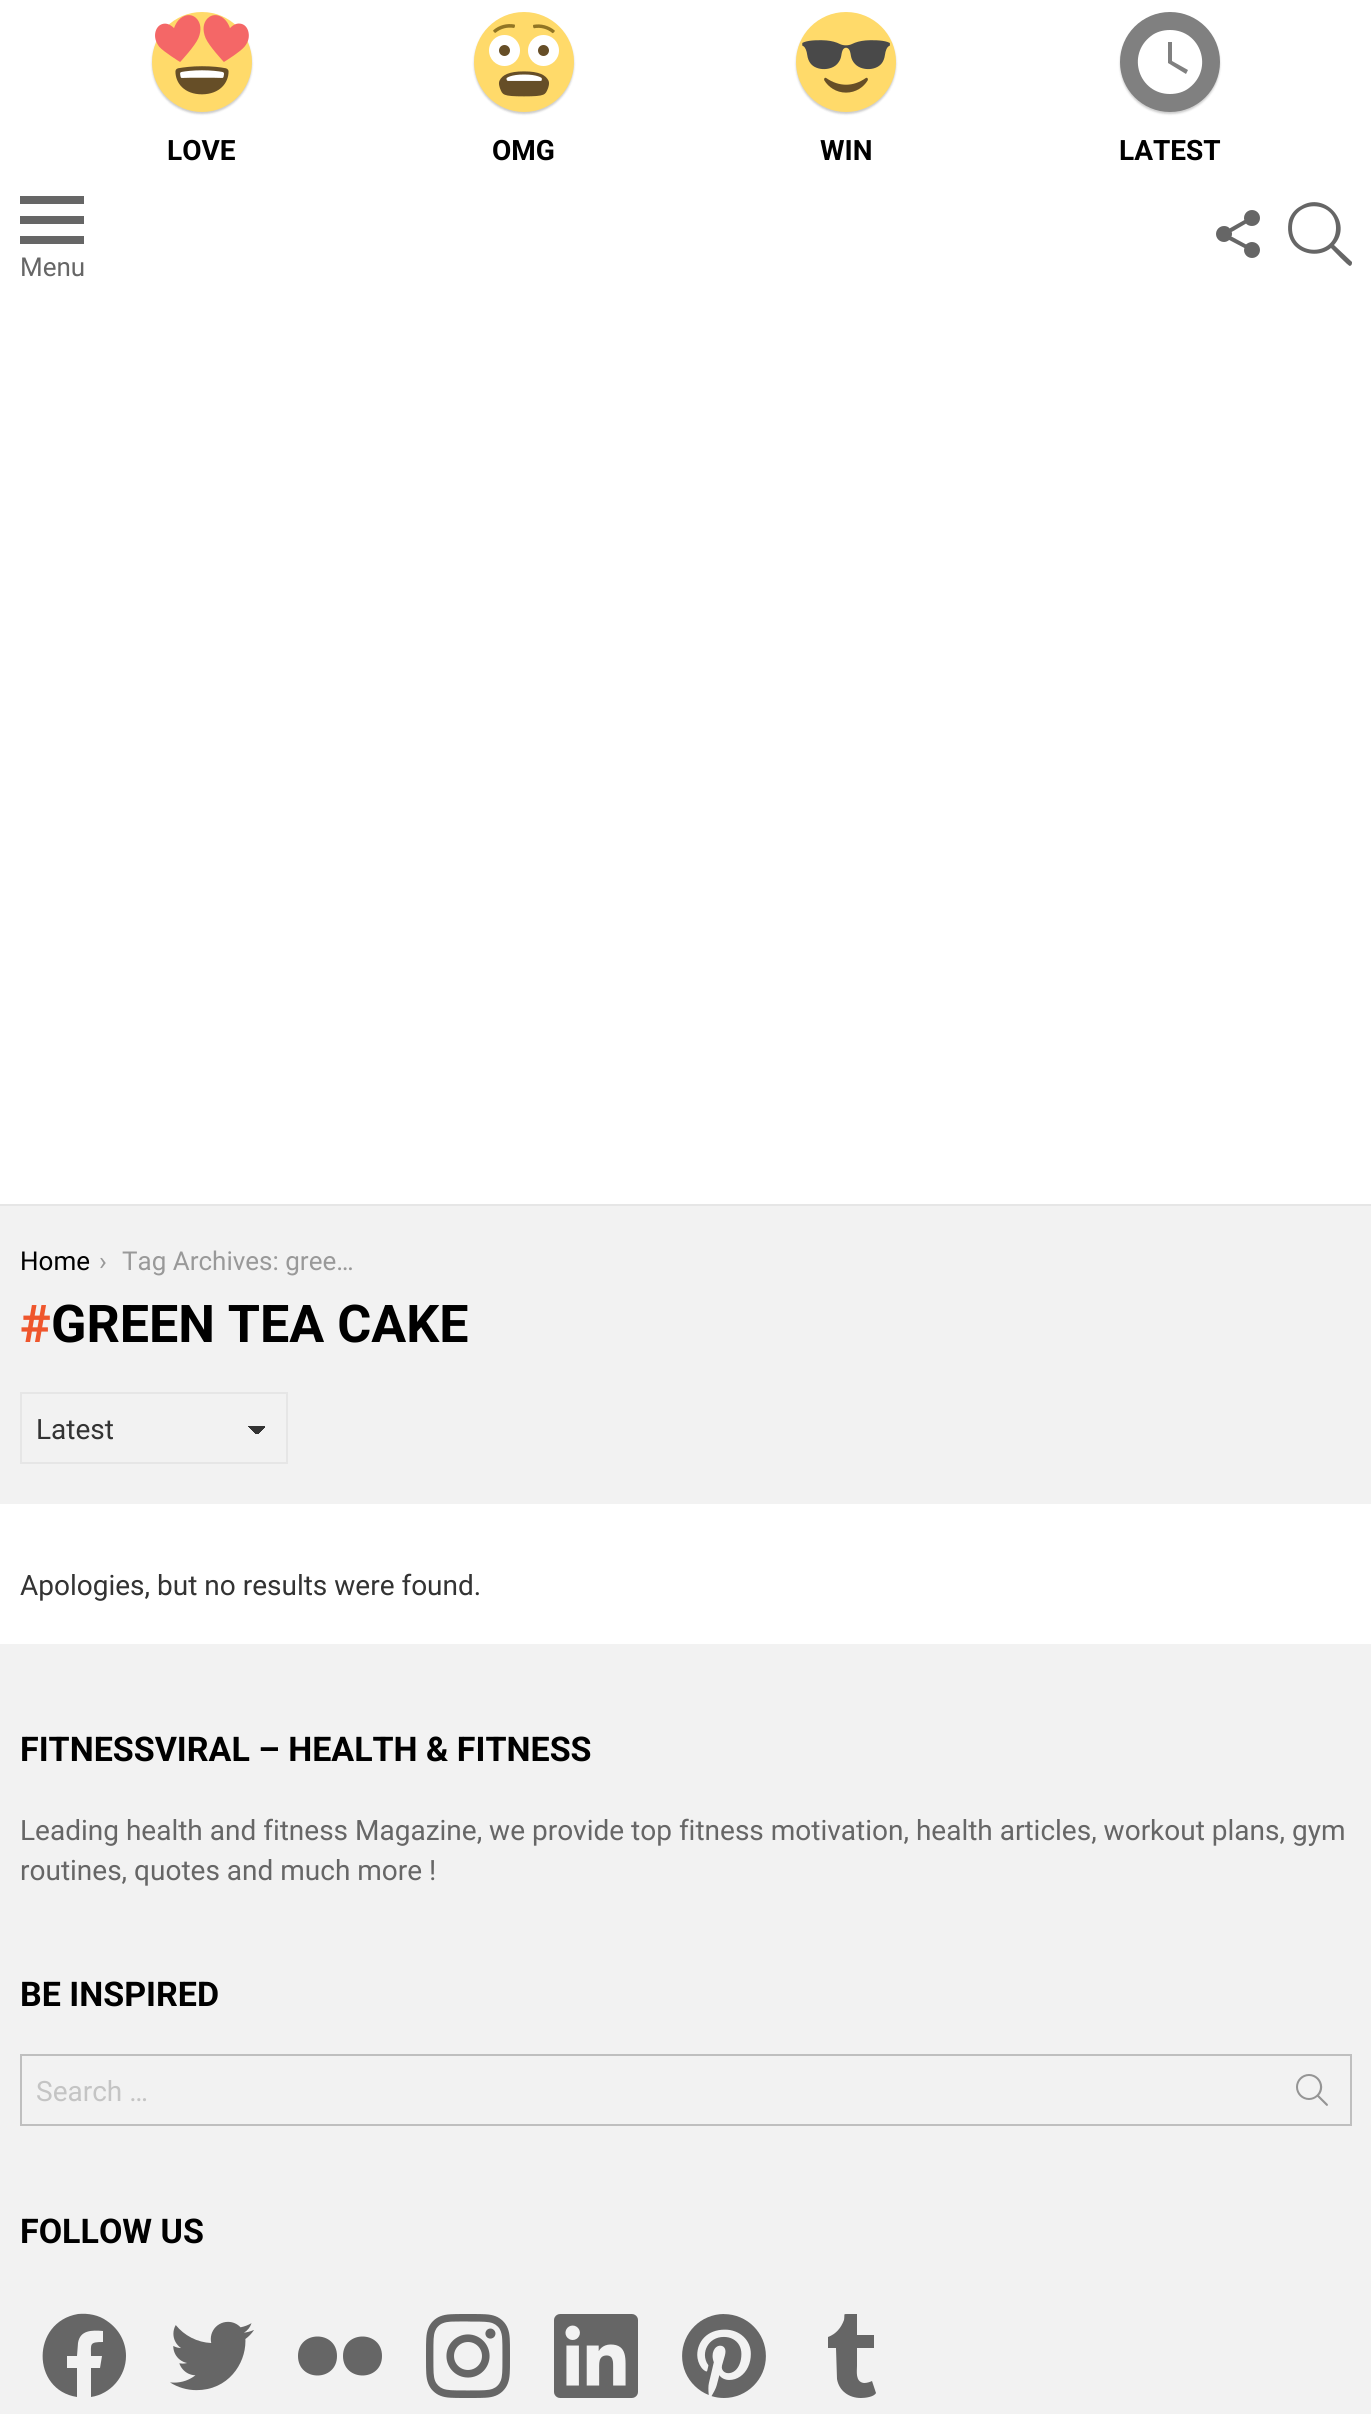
import math
import cairo



def rounded_rect(context, x, y, w, h, r):
    context.new_sub_path()
    for i, (u, v) in enumerate([(x + w - r, y + h - r), (x + r, y + h - r), (x + r, y + r), (x + w - r, y + r)]):
        context.arc(u, v, r, i * math.pi / 2, (i + 1) * math.pi / 2)
    context.close_path()


def draw_shadow(context, x, y, w, h, r, blur, alpha):
    context.push_group_with_content(cairo.Content.ALPHA)
    context.set_operator(cairo.Operator.SOURCE)
    for i in range(15, -16, -2):
        e = blur * i / 6
        if min(w, h) + 2 * e > 0:
            context.set_source_rgba(0, 0, 0, alpha * math.erfc((i - 1) / 8.5) / 2)
            rounded_rect(context, x - e, y - e, w + 2 * e, h + 2 * e, max(0, min(r + e + blur * .6, min(w, h) / 2 + e)))
            context.fill()
    context.mask(context.pop_group())


def draw_image(context, path, x, y, w, h):
    context.save()
    context.set_source_surface(cairo.ImageSurface.create_from_png(path), x, y)
    context.rectangle(x, y, w, h)
    context.fill()
    context.restore()


def draw(context):
    context.set_source_rgb(1, 1, 1)
    context.paint()
    context.set_source_rgb(0, 0, 0)
    draw_shadow(context, 152, 14, 100, 100, 50, 1, 0.2)
    context.set_source_rgb(1, 218 / 255, 106 / 255)
    context.arc(202, 62, 50, 0, 2 * math.pi)
    context.fill()
    draw_image(context, "images/1.png", 155, 15, 94, 80)
    context.set_source_rgb(0, 0, 0)
    draw_shadow(context, 474, 14, 100, 100, 50, 1, 0.2)
    context.set_source_rgb(1, 218 / 255, 106 / 255)
    context.arc(524, 62, 50, 0, 2 * math.pi)
    context.fill()
    draw_image(context, "images/2.png", 489, 24, 70, 73)
    context.set_source_rgb(0, 0, 0)
    draw_shadow(context, 796, 14, 100, 100, 50, 1, 0.2)
    context.set_source_rgb(1, 218 / 255, 106 / 255)
    context.arc(846, 62, 50, 0, 2 * math.pi)
    context.fill()
    draw_image(context, "images/3.png", 802, 40, 88, 53)
    context.set_source_rgb(0, 0, 0)
    draw_shadow(context, 1120, 14, 100, 100, 50, 1, 0.2)
    context.set_source_rgb(128 / 255, 128 / 255, 128 / 255)
    context.arc(1170, 62, 50, 0, 2 * math.pi)
    context.fill()
    context.set_source_rgb(1, 1, 1)
    context.new_path()
    context.move_to(1170, 30)
    context.curve_to(1163, 30, 1156, 32, 1151, 36)
    context.curve_to(1126, 55, 1139, 94, 1170, 94)
    context.curve_to(1177, 94, 1184, 92, 1189, 88)
    context.curve_to(1214, 69, 1201, 30, 1170, 30)
    context.close_path()
    context.move_to(1186, 74)
    context.line_to(1168, 63)
    context.line_to(1168, 42)
    context.line_to(1172, 42)
    context.line_to(1172, 61)
    context.line_to(1188, 70)
    context.close_path()
    context.fill()
    context.set_source_rgb(102 / 255, 102 / 255, 102 / 255)
    context.new_path()
    context.move_to(20, 196)
    context.line_to(84, 196)
    context.line_to(84, 204)
    context.line_to(20, 204)
    context.close_path()
    context.move_to(20, 216)
    context.line_to(84, 216)
    context.line_to(84, 224)
    context.line_to(20, 224)
    context.close_path()
    context.move_to(20, 236)
    context.line_to(84, 236)
    context.line_to(84, 244)
    context.line_to(20, 244)
    context.close_path()
    context.fill()
    draw_image(context, "images/4.png", 1216, 210, 44, 48)
    context.new_path()
    context.move_to(1352, 262)
    context.line_to(1334, 245)
    context.curve_to(1354, 223, 1325, 191, 1301, 206)
    context.curve_to(1295, 209, 1291, 214, 1289, 220)
    context.curve_to(1287, 229, 1288, 238, 1294, 245)
    context.curve_to(1303, 255, 1320, 257, 1331, 248)
    context.curve_to(1333, 250, 1348, 266, 1350, 266)
    context.curve_to(1352, 265, 1352, 264, 1352, 262)
    context.close_path()
    context.move_to(1292, 228)
    context.curve_to(1292, 199, 1336, 199, 1336, 228)
    context.curve_to(1336, 257, 1292, 257, 1292, 228)
    context.close_path()
    context.fill()
    context.set_source_rgb(230 / 255, 230 / 255, 230 / 255)
    context.rectangle(0, 1204, 1371, 2)
    context.fill()
    context.set_source_rgb(242 / 255, 242 / 255, 242 / 255)
    context.rectangle(0, 1206, 1371, 298)
    context.fill()
    gradient = cairo.LinearGradient(257, 1426, 266, 1435)
    gradient.add_color_stop_rgba(0.5, 51 / 255, 51 / 255, 51 / 255, 1)
    gradient.add_color_stop_rgba(0.5, 242 / 255, 242 / 255, 242 / 255, 1)
    context.set_source(gradient)
    context.rectangle(256, 1426, 10, 8)
    context.fill()
    gradient = cairo.LinearGradient(247, 1435, 256, 1426)
    gradient.add_color_stop_rgba(0.5, 242 / 255, 242 / 255, 242 / 255, 1)
    gradient.add_color_stop_rgba(0.5, 51 / 255, 51 / 255, 51 / 255, 1)
    context.set_source(gradient)
    context.rectangle(246, 1426, 10, 8)
    context.fill()
    context.rectangle(21, 1393, 266, 70)
    context.set_source_rgb(230 / 255, 230 / 255, 230 / 255)
    context.stroke()
    context.set_source_rgb(242 / 255, 242 / 255, 242 / 255)
    context.rectangle(0, 1644, 1371, 770)
    context.fill()
    context.rectangle(21, 2055, 1330, 70)
    context.set_source_rgb(191 / 255, 191 / 255, 191 / 255)
    context.stroke()
    draw_image(context, "images/5.png", 1296, 2074, 32, 32)
    context.set_source_rgb(102 / 255, 102 / 255, 102 / 255)
    context.new_path()
    context.move_to(126, 2356)
    context.curve_to(126, 2342, 119, 2329, 107, 2321)
    context.curve_to(99, 2315, 88, 2313, 78, 2314)
    context.curve_to(31, 2322, 31, 2390, 77, 2397)
    context.line_to(77, 2368)
    context.line_to(67, 2368)
    context.line_to(67, 2356)
    context.line_to(77, 2356)
    context.line_to(78, 2343)
    context.curve_to(80, 2330, 92, 2330, 103, 2331)
    context.line_to(103, 2342)
    context.curve_to(89, 2342, 91, 2344, 91, 2356)
    context.line_to(102, 2356)
    context.line_to(100, 2368)
    context.line_to(91, 2368)
    context.line_to(91, 2397)
    context.curve_to(111, 2394, 126, 2376, 126, 2356)
    context.close_path()
    context.fill()
    draw_image(context, "images/6.png", 170, 2321, 84, 70)
    context.new_path()
    context.move_to(298, 2356)
    context.curve_to(298, 2382, 337, 2382, 337, 2356)
    context.curve_to(337, 2330, 298, 2330, 298, 2356)
    context.close_path()
    context.move_to(343, 2356)
    context.curve_to(343, 2382, 382, 2382, 382, 2356)
    context.curve_to(382, 2330, 343, 2330, 343, 2356)
    context.close_path()
    context.fill()
    draw_image(context, "images/7.png", 426, 2314, 84, 84)
    draw_image(context, "images/8.png", 554, 2314, 84, 84)
    draw_image(context, "images/9.png", 682, 2314, 84, 84)
    context.new_path()
    context.move_to(861, 2398)
    context.curve_to(849, 2398, 839, 2391, 837, 2379)
    context.line_to(836, 2348)
    context.line_to(828, 2348)
    context.line_to(828, 2337)
    context.curve_to(836, 2334, 841, 2328, 844, 2320)
    context.curve_to(845, 2314, 843, 2314, 847, 2314)
    context.line_to(857, 2314)
    context.line_to(857, 2335)
    context.line_to(874, 2335)
    context.line_to(874, 2348)
    context.line_to(857, 2348)
    context.line_to(857, 2366)
    context.curve_to(857, 2371, 855, 2382, 864, 2383)
    context.curve_to(867, 2383, 870, 2382, 872, 2381)
    context.line_to(876, 2393)
    context.curve_to(874, 2397, 865, 2398, 861, 2398)
    context.close_path()
    context.fill()
    context.select_font_face("Roboto", cairo.FontSlant.NORMAL, cairo.FontWeight.BOLD)
    context.set_font_size(28)
    context.set_source_rgb(0, 0, 0)
    context.move_to(167, 160)
    context.show_text("LOVE")
    context.move_to(492, 160)
    context.show_text("OMG")
    context.move_to(820, 160)
    context.show_text("WIN")
    context.move_to(1119, 160)
    context.show_text("LATEST")
    context.select_font_face("Roboto")
    context.set_font_size(26)
    context.set_source_rgb(102 / 255, 102 / 255, 102 / 255)
    context.move_to(20, 276)
    context.show_text("Menu")
    context.set_source_rgb(0, 0, 0)
    context.move_to(20, 1270)
    context.show_text("Home")
    context.set_source_rgb(153 / 255, 153 / 255, 153 / 255)
    context.move_to(99, 1270)
    context.show_text("›")
    context.move_to(122, 1270)
    context.show_text("Tag Archives: gree…")
    context.select_font_face("Roboto", cairo.FontSlant.NORMAL, cairo.FontWeight.BOLD)
    context.set_font_size(52)
    context.set_source_rgb(239 / 255, 86 / 255, 45 / 255)
    context.move_to(20, 1342)
    context.show_text("#")
    context.set_source_rgb(0, 0, 0)
    context.move_to(51, 1342)
    context.show_text("GREEN TEA CAKE")
    context.select_font_face("Roboto")
    context.set_font_size(28)
    context.set_source_rgb(51 / 255, 51 / 255, 51 / 255)
    context.move_to(36, 1439)
    context.show_text("Latest")
    context.move_to(20, 1595)
    context.show_text("Apologies, but no results were found.")
    context.select_font_face("Roboto", cairo.FontSlant.NORMAL, cairo.FontWeight.BOLD)
    context.set_font_size(34)
    context.set_source_rgb(0, 0, 0)
    context.move_to(20, 1761)
    context.show_text("FITNESSVIRAL – HEALTH & FITNESS")
    context.select_font_face("Roboto")
    context.set_font_size(28)
    context.set_source_rgb(102 / 255, 102 / 255, 102 / 255)
    context.move_to(20, 1840)
    context.show_text("Leading health and fitness Magazine, we provide top fitness motivation, health articles, workout plans, gym")
    context.move_to(20, 1880)
    context.show_text("routines, quotes and much more !")
    context.select_font_face("Roboto", cairo.FontSlant.NORMAL, cairo.FontWeight.BOLD)
    context.set_font_size(34)
    context.set_source_rgb(0, 0, 0)
    context.move_to(20, 2006)
    context.show_text("BE INSPIRED")
    context.select_font_face("Roboto")
    context.set_font_size(28)
    context.set_source_rgb(196 / 255, 196 / 255, 196 / 255)
    context.move_to(36, 2101)
    context.show_text("Search …")
    context.select_font_face("Roboto", cairo.FontSlant.NORMAL, cairo.FontWeight.BOLD)
    context.set_font_size(34)
    context.set_source_rgb(0, 0, 0)
    context.move_to(20, 2243)
    context.show_text("FOLLOW US")


surface = cairo.ImageSurface(cairo.Format.RGB24, 1371, 2414)
context = cairo.Context(surface)
options = cairo.FontOptions()
options.set_hint_metrics(cairo.HintMetrics.OFF)
options.set_hint_style(cairo.HintStyle.NONE)
context.set_font_options(options)
context.set_miter_limit(4)
draw(context)
surface.write_to_png("out.png")
